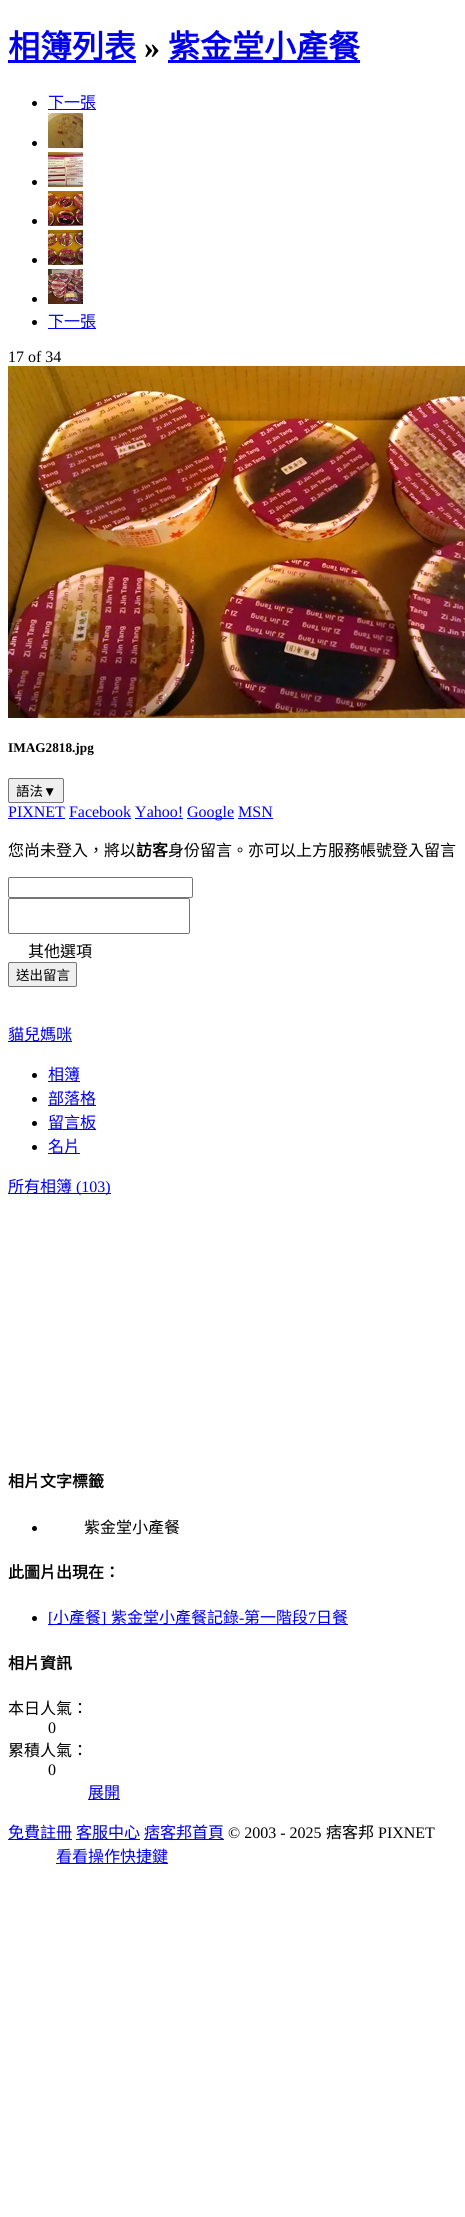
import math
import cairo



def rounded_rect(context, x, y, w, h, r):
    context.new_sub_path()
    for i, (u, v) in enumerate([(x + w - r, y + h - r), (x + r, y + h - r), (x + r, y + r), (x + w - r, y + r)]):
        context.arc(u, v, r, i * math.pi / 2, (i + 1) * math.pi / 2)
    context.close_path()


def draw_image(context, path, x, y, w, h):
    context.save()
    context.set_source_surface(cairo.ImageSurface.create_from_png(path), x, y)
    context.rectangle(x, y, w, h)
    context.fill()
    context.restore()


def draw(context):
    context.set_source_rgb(1, 1, 1)
    context.paint()
    context.set_source_rgb(0, 0, 238 / 255)
    context.rectangle(8, 60, 128, 3)
    context.fill()
    context.rectangle(168, 60, 192, 3)
    context.fill()
    context.set_source_rgb(0, 0, 0)
    context.arc(34.5, 103.5, 2.5, 0, 2 * math.pi)
    context.fill()
    context.set_source_rgb(0, 0, 238 / 255)
    context.rectangle(48, 109, 48, 1)
    context.fill()
    context.set_source_rgb(0, 0, 0)
    context.arc(34.5, 143.5, 2.5, 0, 2 * math.pi)
    context.fill()
    draw_image(context, "images/1.png", 48, 113, 35, 35)
    context.arc(34.5, 182.5, 2.5, 0, 2 * math.pi)
    context.fill()
    draw_image(context, "images/2.png", 48, 152, 35, 35)
    context.arc(34.5, 221.5, 2.5, 0, 2 * math.pi)
    context.fill()
    draw_image(context, "images/3.png", 48, 191, 35, 35)
    context.arc(34.5, 260.5, 2.5, 0, 2 * math.pi)
    context.fill()
    draw_image(context, "images/4.png", 48, 230, 35, 35)
    context.arc(34.5, 299.5, 2.5, 0, 2 * math.pi)
    context.fill()
    draw_image(context, "images/5.png", 48, 269, 35, 35)
    context.arc(34.5, 322.5, 2.5, 0, 2 * math.pi)
    context.fill()
    context.set_source_rgb(0, 0, 238 / 255)
    context.rectangle(48, 328, 48, 1)
    context.fill()
    draw_image(context, "images/6.png", 8, 366, 457, 352)
    context.set_source_rgb(239 / 255, 239 / 255, 239 / 255)
    rounded_rect(context, 8.5, 778.5, 55, 24, 1.5)
    context.fill_preserve()
    context.set_source_rgb(118 / 255, 118 / 255, 118 / 255)
    context.set_line_width(1)
    context.stroke()
    context.set_source_rgb(0, 0, 238 / 255)
    context.rectangle(8, 818, 57, 1)
    context.fill()
    context.rectangle(187, 818, 47, 1)
    context.fill()
    context.rectangle(69, 818, 62, 1)
    context.fill()
    context.rectangle(135, 818, 48, 1)
    context.fill()
    context.rectangle(238, 818, 35, 1)
    context.fill()
    rounded_rect(context, 8.5, 877.5, 184, 20, 1.5)
    context.set_source_rgb(118 / 255, 118 / 255, 118 / 255)
    context.stroke()
    rounded_rect(context, 8.5, 898.5, 181, 35, 1.5)
    context.stroke()
    context.set_source_rgb(239 / 255, 239 / 255, 239 / 255)
    rounded_rect(context, 8.5, 962.5, 68, 24, 1.5)
    context.fill_preserve()
    context.set_source_rgb(118 / 255, 118 / 255, 118 / 255)
    context.stroke()
    context.set_source_rgb(0, 0, 238 / 255)
    context.rectangle(8, 1041, 64, 1)
    context.fill()
    context.set_source_rgb(0, 0, 0)
    context.arc(34.5, 1075.5, 2.5, 0, 2 * math.pi)
    context.fill()
    context.set_source_rgb(0, 0, 238 / 255)
    context.rectangle(48, 1081, 32, 1)
    context.fill()
    context.set_source_rgb(0, 0, 0)
    context.arc(34.5, 1099.5, 2.5, 0, 2 * math.pi)
    context.fill()
    context.set_source_rgb(0, 0, 238 / 255)
    context.rectangle(48, 1105, 48, 1)
    context.fill()
    context.set_source_rgb(0, 0, 0)
    context.arc(34.5, 1123.5, 2.5, 0, 2 * math.pi)
    context.fill()
    context.set_source_rgb(0, 0, 238 / 255)
    context.rectangle(48, 1129, 48, 1)
    context.fill()
    context.set_source_rgb(0, 0, 0)
    context.arc(34.5, 1147.5, 2.5, 0, 2 * math.pi)
    context.fill()
    context.set_source_rgb(0, 0, 238 / 255)
    context.rectangle(48, 1153, 32, 1)
    context.fill()
    context.rectangle(8, 1193, 103, 1)
    context.fill()
    context.set_source_rgb(0, 0, 0)
    context.arc(34.5, 1528.5, 2.5, 0, 2 * math.pi)
    context.fill()
    context.arc(34.5, 1618.5, 2.5, 0, 2 * math.pi)
    context.fill()
    context.set_source_rgb(0, 0, 238 / 255)
    context.rectangle(48, 1624, 300, 1)
    context.fill()
    context.rectangle(88, 1799, 32, 1)
    context.fill()
    context.rectangle(8, 1839, 64, 1)
    context.fill()
    context.rectangle(76, 1839, 64, 1)
    context.fill()
    context.rectangle(144, 1839, 80, 1)
    context.fill()
    context.rectangle(56, 1863, 112, 1)
    context.fill()
    context.select_font_face("Noto Sans CJK TC", cairo.FontSlant.NORMAL, cairo.FontWeight.BOLD)
    context.set_font_size(32)
    context.move_to(8, 58)
    context.show_text("相簿列表")
    context.select_font_face("Liberation Serif", cairo.FontSlant.NORMAL, cairo.FontWeight.BOLD)
    context.set_source_rgb(0, 0, 0)
    context.move_to(144, 58)
    context.show_text("»")
    context.select_font_face("Noto Sans CJK TC", cairo.FontSlant.NORMAL, cairo.FontWeight.BOLD)
    context.set_source_rgb(0, 0, 238 / 255)
    context.move_to(168, 58)
    context.show_text("紫金堂小產餐")
    context.select_font_face("Noto Sans CJK TC")
    context.set_font_size(16)
    context.move_to(48, 108)
    context.show_text("下一張")
    context.move_to(48, 327)
    context.show_text("下一張")
    context.select_font_face("Liberation Serif")
    context.set_source_rgb(0, 0, 0)
    context.move_to(8, 362)
    context.show_text("17 of 34")
    context.select_font_face("Liberation Serif", cairo.FontSlant.NORMAL, cairo.FontWeight.BOLD)
    context.set_font_size(13.25)
    context.move_to(8, 752)
    context.show_text("IMAG2818.jpg")
    context.select_font_face("Noto Sans CJK TC")
    context.set_font_size(13.5)
    context.move_to(16, 796)
    context.show_text("語法")
    context.select_font_face("Liberation Sans")
    context.move_to(43, 796)
    context.show_text("▼")
    context.select_font_face("Liberation Serif")
    context.set_font_size(16)
    context.set_source_rgb(0, 0, 238 / 255)
    context.move_to(8, 817)
    context.show_text("PIXNET Facebook Yahoo!")
    context.move_to(187, 817)
    context.show_text("Google MSN")
    context.select_font_face("Noto Sans CJK TC")
    context.set_source_rgb(0, 0, 0)
    context.move_to(8, 856)
    context.show_text("您尚未登入，將以")
    context.select_font_face("Noto Sans CJK TC", cairo.FontSlant.NORMAL, cairo.FontWeight.BOLD)
    context.move_to(136, 856)
    context.show_text("訪客")
    context.select_font_face("Noto Sans CJK TC")
    context.move_to(168, 856)
    context.show_text("身份留言。亦可以上方服務帳號登入留言")
    context.move_to(28, 957)
    context.show_text("其他選項")
    context.set_font_size(13.5)
    context.move_to(16, 980)
    context.show_text("送出留言")
    context.set_font_size(16)
    context.set_source_rgb(0, 0, 238 / 255)
    context.move_to(8, 1040)
    context.show_text("貓兒媽咪")
    context.move_to(48, 1080)
    context.show_text("相簿")
    context.move_to(48, 1104)
    context.show_text("部落格")
    context.move_to(48, 1128)
    context.show_text("留言板")
    context.move_to(48, 1152)
    context.show_text("名片")
    context.move_to(8, 1192)
    context.show_text("所有相簿")
    context.select_font_face("Liberation Serif")
    context.move_to(76, 1192)
    context.show_text("(103)")
    context.select_font_face("Noto Sans CJK TC", cairo.FontSlant.NORMAL, cairo.FontWeight.BOLD)
    context.set_source_rgb(0, 0, 0)
    context.move_to(8, 1487)
    context.show_text("相片文字標籤")
    context.select_font_face("Noto Sans CJK TC")
    context.move_to(84, 1533)
    context.show_text("紫金堂小產餐")
    context.select_font_face("Noto Sans CJK TC", cairo.FontSlant.NORMAL, cairo.FontWeight.BOLD)
    context.move_to(8, 1578)
    context.show_text("此圖片出現在：")
    context.select_font_face("Liberation Serif")
    context.set_source_rgb(0, 0, 238 / 255)
    context.move_to(48, 1623)
    context.show_text("[")
    context.select_font_face("Noto Sans CJK TC")
    context.move_to(53, 1623)
    context.show_text("小產餐")
    context.select_font_face("Liberation Serif")
    context.move_to(101, 1623)
    context.show_text("]")
    context.select_font_face("Noto Sans CJK TC")
    context.move_to(111, 1623)
    context.show_text("紫金堂小產餐記錄")
    context.select_font_face("Liberation Serif")
    context.move_to(239, 1623)
    context.show_text("-")
    context.select_font_face("Noto Sans CJK TC")
    context.move_to(244, 1623)
    context.show_text("第一階段")
    context.select_font_face("Liberation Serif")
    context.move_to(308, 1623)
    context.show_text("7")
    context.select_font_face("Noto Sans CJK TC")
    context.move_to(316, 1623)
    context.show_text("日餐")
    context.select_font_face("Noto Sans CJK TC", cairo.FontSlant.NORMAL, cairo.FontWeight.BOLD)
    context.set_source_rgb(0, 0, 0)
    context.move_to(8, 1669)
    context.show_text("相片資訊")
    context.select_font_face("Noto Sans CJK TC")
    context.move_to(8, 1714)
    context.show_text("本日人氣：")
    context.select_font_face("Liberation Serif")
    context.move_to(48, 1733)
    context.show_text("0")
    context.select_font_face("Noto Sans CJK TC")
    context.move_to(8, 1756)
    context.show_text("累積人氣：")
    context.select_font_face("Liberation Serif")
    context.move_to(48, 1775)
    context.show_text("0")
    context.select_font_face("Noto Sans CJK TC")
    context.set_source_rgb(0, 0, 238 / 255)
    context.move_to(88, 1798)
    context.show_text("展開")
    context.move_to(8, 1838)
    context.show_text("免費註冊")
    context.move_to(76, 1838)
    context.show_text("客服中心")
    context.move_to(144, 1838)
    context.show_text("痞客邦首頁")
    context.select_font_face("Liberation Serif")
    context.set_source_rgb(0, 0, 0)
    context.move_to(228, 1838)
    context.show_text("© 2003 - 2025")
    context.select_font_face("Noto Sans CJK TC")
    context.move_to(326, 1838)
    context.show_text("痞客邦")
    context.select_font_face("Liberation Serif")
    context.move_to(378, 1838)
    context.show_text("PIXNET")
    context.select_font_face("Noto Sans CJK TC")
    context.set_source_rgb(0, 0, 238 / 255)
    context.move_to(56, 1862)
    context.show_text("看看操作快捷鍵")


surface = cairo.ImageSurface(cairo.Format.RGB24, 465, 2217)
context = cairo.Context(surface)
options = cairo.FontOptions()
options.set_hint_metrics(cairo.HintMetrics.OFF)
options.set_hint_style(cairo.HintStyle.NONE)
context.set_font_options(options)
context.set_miter_limit(4)
draw(context)
surface.write_to_png("out.png")
